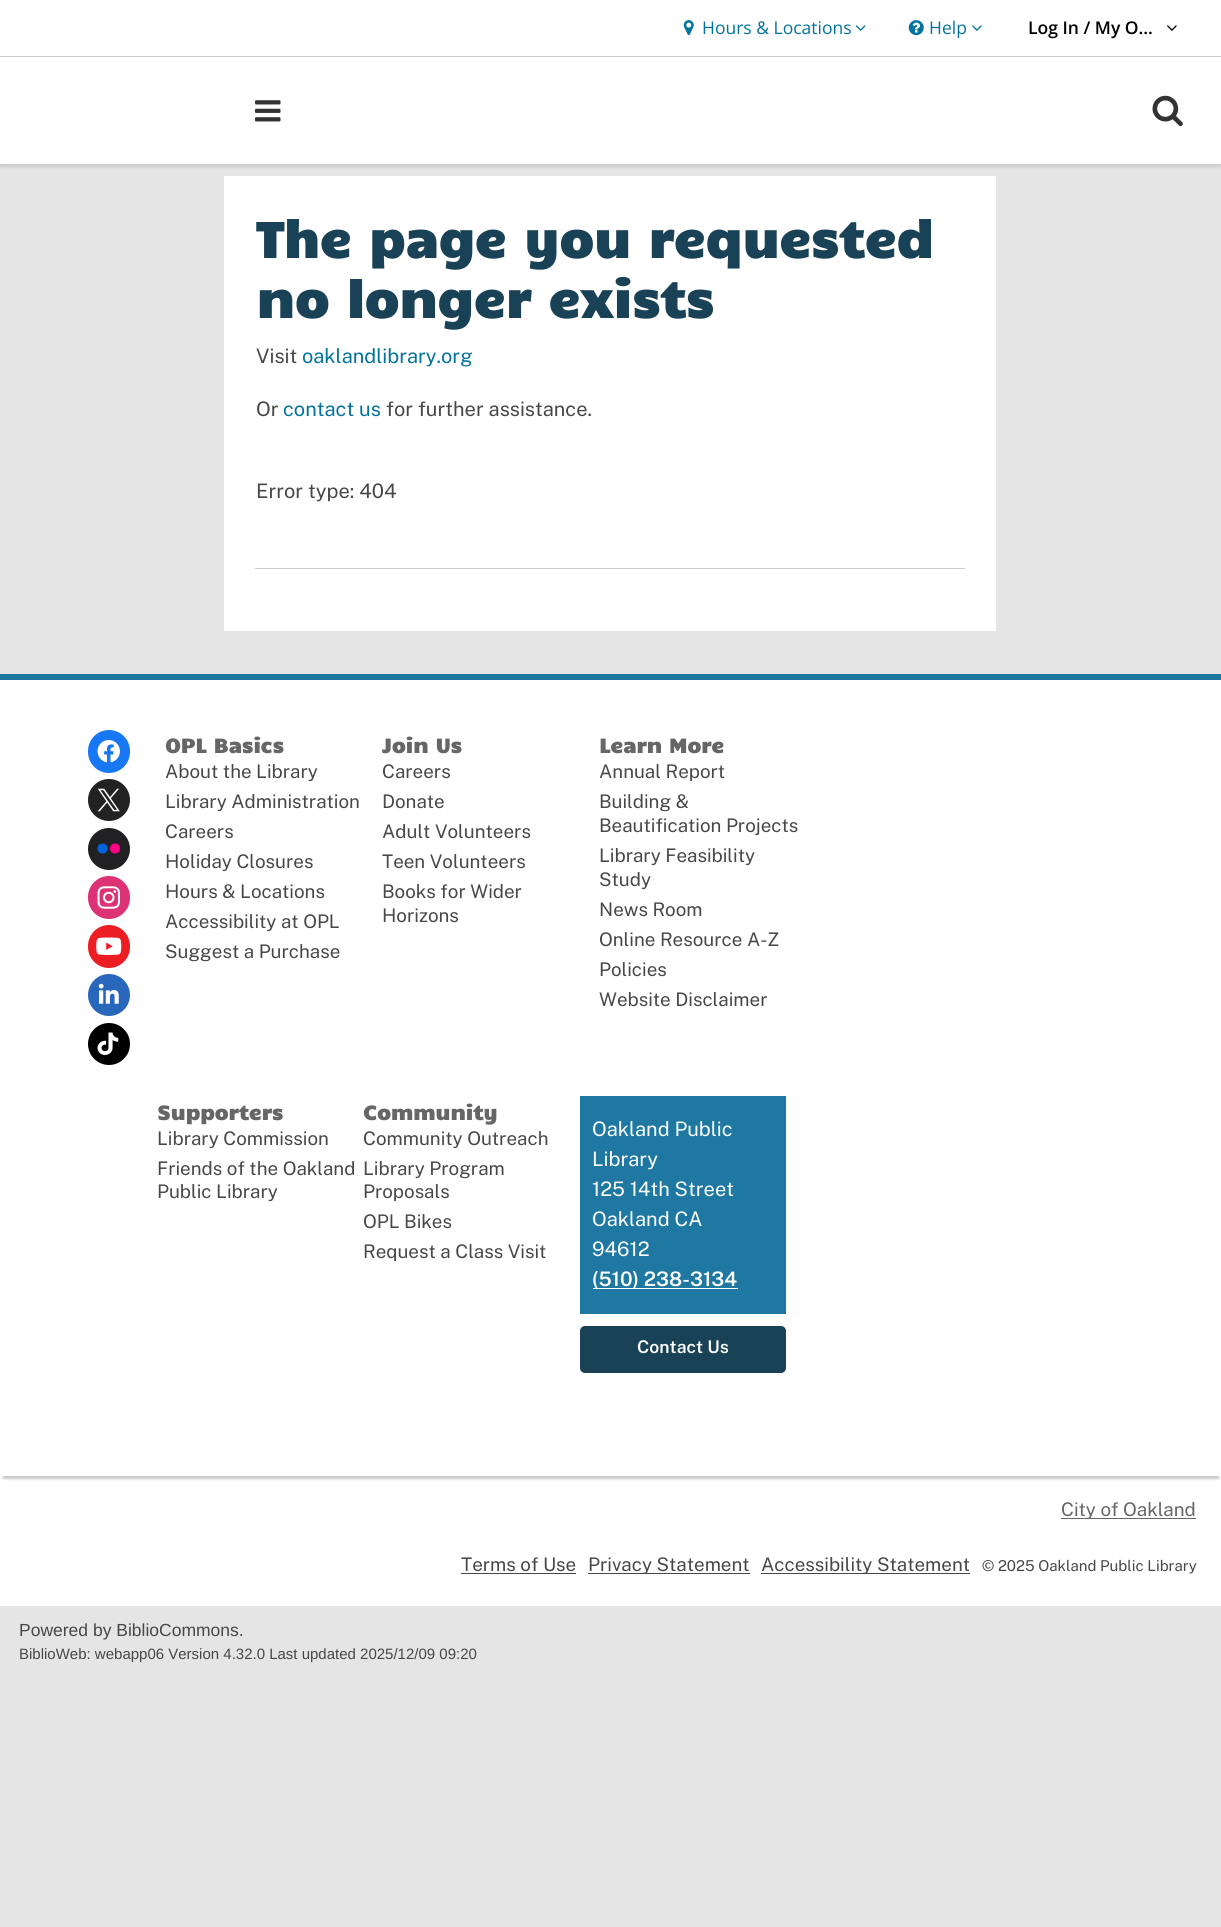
import math
import cairo



def rounded_rect(context, x, y, w, h, r):
    context.new_sub_path()
    for i, (u, v) in enumerate([(x + w - r, y + h - r), (x + r, y + h - r), (x + r, y + r), (x + w - r, y + r)]):
        context.arc(u, v, r, i * math.pi / 2, (i + 1) * math.pi / 2)
    context.close_path()


def draw_shadow(context, x, y, w, h, r, blur, alpha):
    context.push_group_with_content(cairo.Content.ALPHA)
    context.set_operator(cairo.Operator.SOURCE)
    for i in range(15, -16, -2):
        e = blur * i / 6
        if min(w, h) + 2 * e > 0:
            context.set_source_rgba(0, 0, 0, alpha * math.erfc((i - 1) / 8.5) / 2)
            rounded_rect(context, x - e, y - e, w + 2 * e, h + 2 * e, max(0, min(r + e + blur * .6, min(w, h) / 2 + e)))
            context.fill()
    context.mask(context.pop_group())


def draw_image(context, path, x, y, w, h):
    context.save()
    context.set_source_surface(cairo.ImageSurface.create_from_png(path), x, y)
    context.rectangle(x, y, w, h)
    context.fill()
    context.restore()


def draw(context):
    context.set_source_rgb(229 / 255, 229 / 255, 229 / 255)
    context.paint()
    context.set_source_rgb(0, 0, 0)
    draw_shadow(context, 0, 3, 1221, 163, 0, 2.5, 0.16)
    context.set_source_rgb(1, 1, 1)
    context.rectangle(0, 0, 1221, 164)
    context.fill()
    context.set_source_rgb(204 / 255, 204 / 255, 204 / 255)
    context.rectangle(0, 56, 1221, 1)
    context.fill()
    draw_image(context, "images/1.png", 683, 20, 11, 16)
    draw_image(context, "images/2.png", 855, 25, 11, 6)
    draw_image(context, "images/3.png", 908, 20, 16, 16)
    draw_image(context, "images/4.png", 972, 25, 10, 6)
    draw_image(context, "images/5.png", 1167, 25, 10, 6)
    draw_image(context, "images/6.png", 255, 100, 26, 22)
    draw_image(context, "images/7.png", 1152, 95, 31, 32)
    context.set_source_rgb(1, 1, 1)
    context.rectangle(224, 176, 772, 455)
    context.fill()
    context.set_source_rgb(204 / 255, 204 / 255, 204 / 255)
    context.rectangle(255, 568, 710, 1)
    context.fill()
    context.set_source_rgb(1, 1, 1)
    context.rectangle(0, 680, 1221, 926)
    context.fill()
    context.save()
    context.rectangle(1, 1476, 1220, 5)
    context.clip()
    context.set_source_rgb(204 / 255, 204 / 255, 204 / 255)
    draw_shadow(context, 3, 681, 1216, 798, 0, 1, 1)
    context.restore()
    context.set_source_rgb(30 / 255, 120 / 255, 162 / 255)
    context.rectangle(0, 674, 1221, 6)
    context.fill()
    context.set_source_rgb(24 / 255, 119 / 255, 242 / 255)
    rounded_rect(context, 88, 730, 42, 43, 21)
    context.fill()
    draw_image(context, "images/8.png", 97, 740, 23, 23)
    context.set_source_rgb(34 / 255, 34 / 255, 34 / 255)
    context.arc(109, 800, 21, 0, 2 * math.pi)
    context.fill()
    draw_image(context, "images/9.png", 97, 788, 23, 24)
    context.set_source_rgb(33 / 255, 33 / 255, 35 / 255)
    context.arc(109, 849, 21, 0, 2 * math.pi)
    context.fill()
    context.set_source_rgb(0, 99 / 255, 220 / 255)
    context.arc(102.5, 848.5, 5, 0, 2 * math.pi)
    context.fill()
    context.set_source_rgb(1, 0, 132 / 255)
    context.arc(115, 848.5, 5, 0, 2 * math.pi)
    context.fill()
    context.set_source_rgb(221 / 255, 50 / 255, 117 / 255)
    rounded_rect(context, 88, 876, 42, 43, 21)
    context.fill()
    draw_image(context, "images/10.png", 97, 886, 23, 23)
    context.set_source_rgb(237 / 255, 29 / 255, 36 / 255)
    rounded_rect(context, 88, 925, 42, 43, 21)
    context.fill()
    draw_image(context, "images/11.png", 96, 937, 26, 18)
    context.set_source_rgb(41 / 255, 103 / 255, 188 / 255)
    context.arc(109, 995, 21, 0, 2 * math.pi)
    context.fill()
    draw_image(context, "images/12.png", 98, 983, 21, 21)
    context.set_source_rgb(0, 0, 0)
    context.arc(109, 1044, 21, 0, 2 * math.pi)
    context.fill()
    draw_image(context, "images/13.png", 97, 1032, 22, 23)
    context.set_source_rgb(30 / 255, 120 / 255, 162 / 255)
    context.rectangle(580, 1096, 206, 218)
    context.fill()
    context.set_source_rgb(1, 1, 1)
    context.rectangle(593, 1288, 145, 1)
    context.fill()
    context.set_source_rgb(25 / 255, 66 / 255, 87 / 255)
    rounded_rect(context, 580, 1326, 206, 47, 5)
    context.fill()
    context.set_source_rgb(102 / 255, 102 / 255, 102 / 255)
    context.rectangle(1061, 1518, 135, 1)
    context.fill()
    context.set_source_rgb(71 / 255, 71 / 255, 71 / 255)
    context.rectangle(461, 1573, 115, 1)
    context.fill()
    context.rectangle(588, 1573, 162, 1)
    context.fill()
    context.rectangle(761, 1573, 209, 1)
    context.fill()
    context.select_font_face("Open Sans")
    context.set_font_size(17.5)
    context.set_source_rgb(2 / 255, 114 / 255, 158 / 255)
    context.move_to(702, 34)
    context.show_text("Hours & Locations")
    context.move_to(929, 34)
    context.show_text("Help")
    context.select_font_face("Open Sans SemiBold")
    context.set_source_rgb(0, 0, 0)
    context.move_to(1028, 34)
    context.show_text("Log In / My O…")
    context.select_font_face("Candal", cairo.FontSlant.NORMAL, cairo.FontWeight.BOLD)
    context.set_font_size(50)
    context.set_source_rgb(25 / 255, 66 / 255, 87 / 255)
    context.move_to(256, 258)
    context.show_text("The page you requested")
    context.move_to(256, 318)
    context.show_text("no longer exists")
    context.select_font_face("Public Sans")
    context.set_font_size(20)
    context.set_source_rgb(71 / 255, 71 / 255, 71 / 255)
    context.move_to(256, 363)
    context.show_text("Visit")
    context.set_source_rgb(2 / 255, 114 / 255, 158 / 255)
    context.move_to(302, 363)
    context.show_text("oaklandlibrary.org")
    context.set_source_rgb(71 / 255, 71 / 255, 71 / 255)
    context.move_to(256, 416)
    context.show_text("Or")
    context.set_source_rgb(2 / 255, 114 / 255, 158 / 255)
    context.move_to(283, 416)
    context.show_text("contact us")
    context.set_source_rgb(71 / 255, 71 / 255, 71 / 255)
    context.move_to(386, 416)
    context.show_text("for further assistance.")
    context.move_to(256, 498)
    context.show_text("Error type: 404")
    context.select_font_face("Candal", cairo.FontSlant.NORMAL, cairo.FontWeight.BOLD)
    context.set_source_rgb(102 / 255, 102 / 255, 102 / 255)
    context.move_to(165, 753)
    context.show_text("OPL Basics")
    context.select_font_face("Public Sans")
    context.set_font_size(18.75)
    context.set_source_rgb(71 / 255, 71 / 255, 71 / 255)
    context.move_to(165, 778)
    context.show_text("About the Library")
    context.move_to(165, 808)
    context.show_text("Library Administration")
    context.move_to(165, 838)
    context.show_text("Careers")
    context.move_to(165, 868)
    context.show_text("Holiday Closures")
    context.move_to(165, 898)
    context.show_text("Hours & Locations")
    context.move_to(165, 928)
    context.show_text("Accessibility at OPL")
    context.move_to(165, 958)
    context.show_text("Suggest a Purchase")
    context.select_font_face("Candal", cairo.FontSlant.NORMAL, cairo.FontWeight.BOLD)
    context.set_font_size(20)
    context.set_source_rgb(102 / 255, 102 / 255, 102 / 255)
    context.move_to(382, 753)
    context.show_text("Join Us")
    context.select_font_face("Public Sans")
    context.set_font_size(18.75)
    context.set_source_rgb(71 / 255, 71 / 255, 71 / 255)
    context.move_to(382, 778)
    context.show_text("Careers")
    context.move_to(382, 808)
    context.show_text("Donate")
    context.move_to(382, 838)
    context.show_text("Adult Volunteers")
    context.move_to(382, 868)
    context.show_text("Teen Volunteers")
    context.move_to(382, 898)
    context.show_text("Books for Wider")
    context.move_to(382, 922)
    context.show_text("Horizons")
    context.select_font_face("Candal", cairo.FontSlant.NORMAL, cairo.FontWeight.BOLD)
    context.set_font_size(20)
    context.set_source_rgb(102 / 255, 102 / 255, 102 / 255)
    context.move_to(599, 753)
    context.show_text("Learn More")
    context.select_font_face("Public Sans")
    context.set_font_size(18.75)
    context.set_source_rgb(71 / 255, 71 / 255, 71 / 255)
    context.move_to(599, 778)
    context.show_text("Annual Report")
    context.move_to(599, 808)
    context.show_text("Building &")
    context.move_to(599, 832)
    context.show_text("Beautification Projects")
    context.move_to(599, 862)
    context.show_text("Library Feasibility")
    context.move_to(599, 886)
    context.show_text("Study")
    context.move_to(599, 916)
    context.show_text("News Room")
    context.move_to(599, 946)
    context.show_text("Online Resource A-Z")
    context.move_to(599, 976)
    context.show_text("Policies")
    context.move_to(599, 1006)
    context.show_text("Website Disclaimer")
    context.select_font_face("Candal", cairo.FontSlant.NORMAL, cairo.FontWeight.BOLD)
    context.set_font_size(20)
    context.set_source_rgb(102 / 255, 102 / 255, 102 / 255)
    context.move_to(157, 1120)
    context.show_text("Supporters")
    context.select_font_face("Public Sans")
    context.set_font_size(18.75)
    context.set_source_rgb(71 / 255, 71 / 255, 71 / 255)
    context.move_to(157, 1145)
    context.show_text("Library Commission")
    context.move_to(157, 1175)
    context.show_text("Friends of the Oakland")
    context.move_to(157, 1198)
    context.show_text("Public Library")
    context.select_font_face("Candal", cairo.FontSlant.NORMAL, cairo.FontWeight.BOLD)
    context.set_font_size(20)
    context.set_source_rgb(102 / 255, 102 / 255, 102 / 255)
    context.move_to(363, 1120)
    context.show_text("Community")
    context.select_font_face("Public Sans")
    context.set_font_size(18.75)
    context.set_source_rgb(71 / 255, 71 / 255, 71 / 255)
    context.move_to(363, 1145)
    context.show_text("Community Outreach")
    context.move_to(363, 1175)
    context.show_text("Library Program")
    context.move_to(363, 1198)
    context.show_text("Proposals")
    context.move_to(363, 1228)
    context.show_text("OPL Bikes")
    context.move_to(363, 1258)
    context.show_text("Request a Class Visit")
    context.set_font_size(20)
    context.set_source_rgb(1, 1, 1)
    context.move_to(592, 1136)
    context.show_text("Oakland Public")
    context.move_to(592, 1166)
    context.show_text("Library")
    context.move_to(592, 1196)
    context.show_text("125 14th Street")
    context.move_to(592, 1226)
    context.show_text("Oakland CA")
    context.move_to(592, 1256)
    context.show_text("94612")
    context.select_font_face("Public Sans SemiBold")
    context.move_to(592, 1286)
    context.show_text("(510) 238-3134")
    context.set_font_size(17.5)
    context.move_to(637, 1353)
    context.show_text("Contact Us")
    context.select_font_face("Public Sans")
    context.set_font_size(18.75)
    context.set_source_rgb(102 / 255, 102 / 255, 102 / 255)
    context.move_to(1061, 1516)
    context.show_text("City of Oakland")
    context.set_source_rgb(71 / 255, 71 / 255, 71 / 255)
    context.move_to(461, 1571)
    context.show_text("Terms of Use")
    context.move_to(588, 1571)
    context.show_text("Privacy Statement")
    context.move_to(761, 1571)
    context.show_text("Accessibility Statement")
    context.set_font_size(15)
    context.move_to(982, 1571)
    context.show_text("© 2025 Oakland Public Library")
    context.select_font_face("Liberation Sans")
    context.set_font_size(17.5)
    context.move_to(19, 1636)
    context.show_text("Powered by BiblioCommons.")
    context.set_font_size(15)
    context.move_to(19, 1659)
    context.show_text("BiblioWeb: webapp06 Version 4.32.0 Last updated 2025/12/09 09:20")


surface = cairo.ImageSurface(cairo.Format.RGB24, 1221, 1927)
context = cairo.Context(surface)
options = cairo.FontOptions()
options.set_hint_metrics(cairo.HintMetrics.OFF)
options.set_hint_style(cairo.HintStyle.NONE)
context.set_font_options(options)
context.set_miter_limit(4)
draw(context)
surface.write_to_png("out.png")
